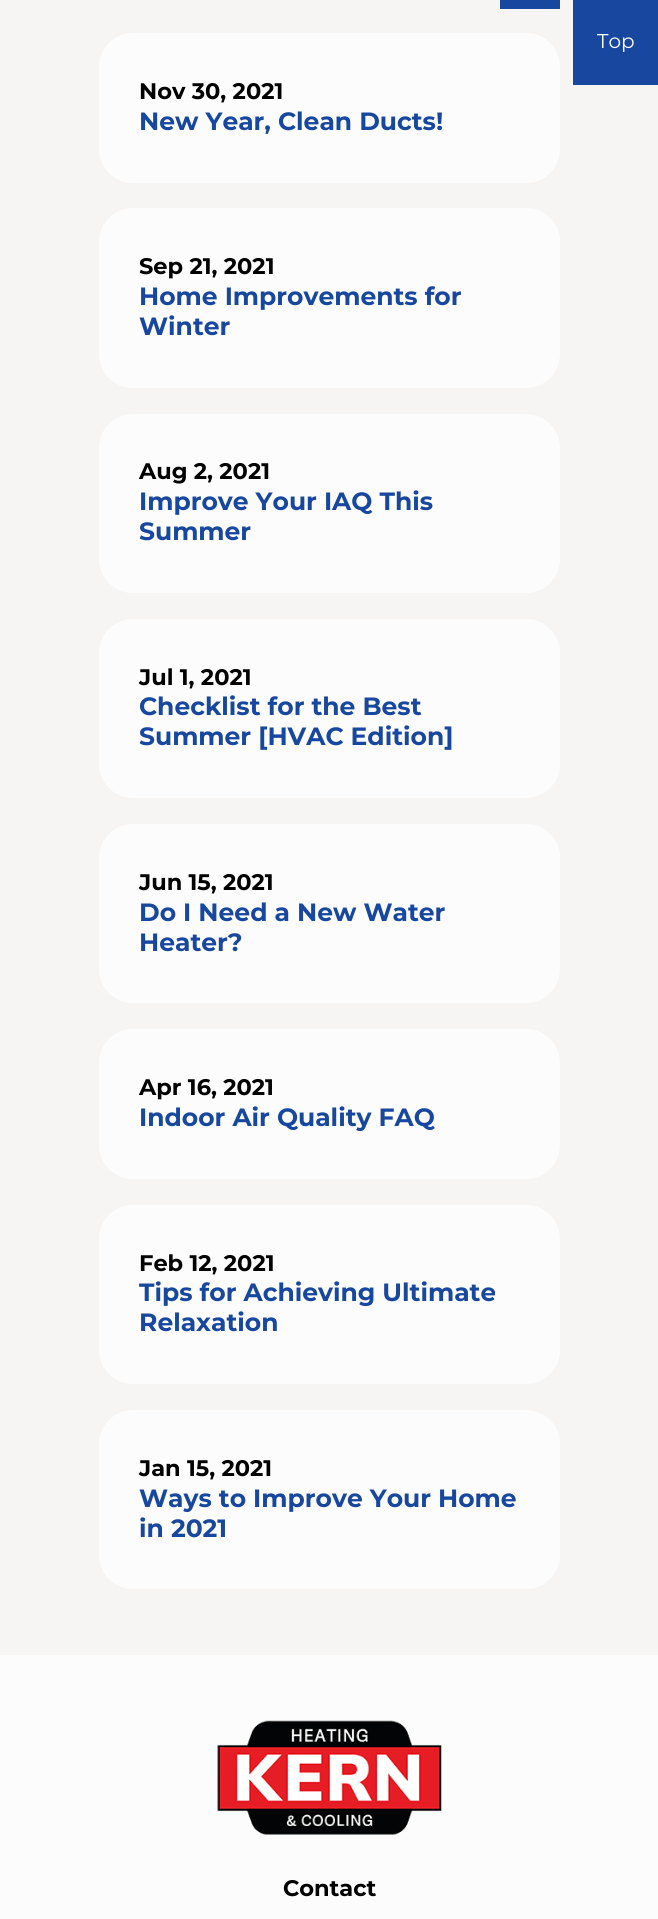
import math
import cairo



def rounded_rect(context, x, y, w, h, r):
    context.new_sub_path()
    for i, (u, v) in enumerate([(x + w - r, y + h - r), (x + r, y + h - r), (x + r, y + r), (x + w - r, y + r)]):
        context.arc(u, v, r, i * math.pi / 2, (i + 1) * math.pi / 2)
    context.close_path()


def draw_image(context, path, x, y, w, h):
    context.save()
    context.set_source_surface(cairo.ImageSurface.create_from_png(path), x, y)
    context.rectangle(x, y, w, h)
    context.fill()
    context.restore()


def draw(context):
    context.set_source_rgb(247 / 255, 245 / 255, 244 / 255)
    context.paint()
    context.set_source_rgb(23 / 255, 71 / 255, 158 / 255)
    context.rectangle(573, 0, 85, 85)
    context.fill()
    context.rectangle(500, 0, 60, 9)
    context.fill()
    context.set_source_rgb(252 / 255, 252 / 255, 252 / 255)
    rounded_rect(context, 99, 33, 461, 150, 34)
    context.fill()
    rounded_rect(context, 99, 208, 461, 180, 34)
    context.fill()
    rounded_rect(context, 99, 414, 461, 179, 34)
    context.fill()
    rounded_rect(context, 99, 619, 461, 179, 34)
    context.fill()
    rounded_rect(context, 99, 824, 461, 179, 34)
    context.fill()
    rounded_rect(context, 99, 1029, 461, 150, 34)
    context.fill()
    rounded_rect(context, 99, 1205, 461, 179, 34)
    context.fill()
    rounded_rect(context, 99, 1410, 461, 179, 34)
    context.fill()
    context.rectangle(0, 1655, 658, 264)
    context.fill()
    draw_image(context, "images/1.png", 217, 1720, 225, 115)
    context.select_font_face("Montserrat")
    context.set_font_size(20)
    context.set_source_rgb(1, 1, 1)
    context.move_to(597, 48)
    context.show_text("Top")
    context.select_font_face("Montserrat", cairo.FontSlant.NORMAL, cairo.FontWeight.BOLD)
    context.set_font_size(22.5)
    context.set_source_rgb(0, 0, 0)
    context.move_to(139, 99)
    context.show_text("Nov 30, 2021")
    context.set_font_size(25)
    context.set_source_rgb(23 / 255, 71 / 255, 158 / 255)
    context.move_to(139, 130)
    context.show_text("New Year, Clean Ducts!")
    context.set_font_size(22.5)
    context.set_source_rgb(0, 0, 0)
    context.move_to(139, 274)
    context.show_text("Sep 21, 2021")
    context.set_font_size(25)
    context.set_source_rgb(23 / 255, 71 / 255, 158 / 255)
    context.move_to(139, 305)
    context.show_text("Home Improvements for")
    context.move_to(139, 335)
    context.show_text("Winter")
    context.set_font_size(22.5)
    context.set_source_rgb(0, 0, 0)
    context.move_to(139, 479)
    context.show_text("Aug 2, 2021")
    context.set_font_size(25)
    context.set_source_rgb(23 / 255, 71 / 255, 158 / 255)
    context.move_to(139, 510)
    context.show_text("Improve Your IAQ This")
    context.move_to(139, 540)
    context.show_text("Summer")
    context.set_font_size(22.5)
    context.set_source_rgb(0, 0, 0)
    context.move_to(139, 685)
    context.show_text("Jul 1, 2021")
    context.set_font_size(25)
    context.set_source_rgb(23 / 255, 71 / 255, 158 / 255)
    context.move_to(139, 715)
    context.show_text("Checklist for the Best")
    context.move_to(139, 745)
    context.show_text("Summer [HVAC Edition]")
    context.set_font_size(22.5)
    context.set_source_rgb(0, 0, 0)
    context.move_to(139, 890)
    context.show_text("Jun 15, 2021")
    context.set_font_size(25)
    context.set_source_rgb(23 / 255, 71 / 255, 158 / 255)
    context.move_to(139, 921)
    context.show_text("Do I Need a New Water")
    context.move_to(139, 951)
    context.show_text("Heater?")
    context.set_font_size(22.5)
    context.set_source_rgb(0, 0, 0)
    context.move_to(139, 1095)
    context.show_text("Apr 16, 2021")
    context.set_font_size(25)
    context.set_source_rgb(23 / 255, 71 / 255, 158 / 255)
    context.move_to(139, 1126)
    context.show_text("Indoor Air Quality FAQ")
    context.set_font_size(22.5)
    context.set_source_rgb(0, 0, 0)
    context.move_to(139, 1271)
    context.show_text("Feb 12, 2021")
    context.set_font_size(25)
    context.set_source_rgb(23 / 255, 71 / 255, 158 / 255)
    context.move_to(139, 1301)
    context.show_text("Tips for Achieving Ultimate")
    context.move_to(139, 1331)
    context.show_text("Relaxation")
    context.set_font_size(22.5)
    context.set_source_rgb(0, 0, 0)
    context.move_to(139, 1476)
    context.show_text("Jan 15, 2021")
    context.set_font_size(25)
    context.set_source_rgb(23 / 255, 71 / 255, 158 / 255)
    context.move_to(139, 1507)
    context.show_text("Ways to Improve Your Home")
    context.move_to(139, 1537)
    context.show_text("in 2021")
    context.set_font_size(22.5)
    context.set_source_rgb(0, 0, 0)
    context.move_to(283, 1896)
    context.show_text("Contact")


surface = cairo.ImageSurface(cairo.Format.RGB24, 658, 1919)
context = cairo.Context(surface)
options = cairo.FontOptions()
options.set_hint_metrics(cairo.HintMetrics.OFF)
options.set_hint_style(cairo.HintStyle.NONE)
context.set_font_options(options)
context.set_miter_limit(4)
draw(context)
surface.write_to_png("out.png")
